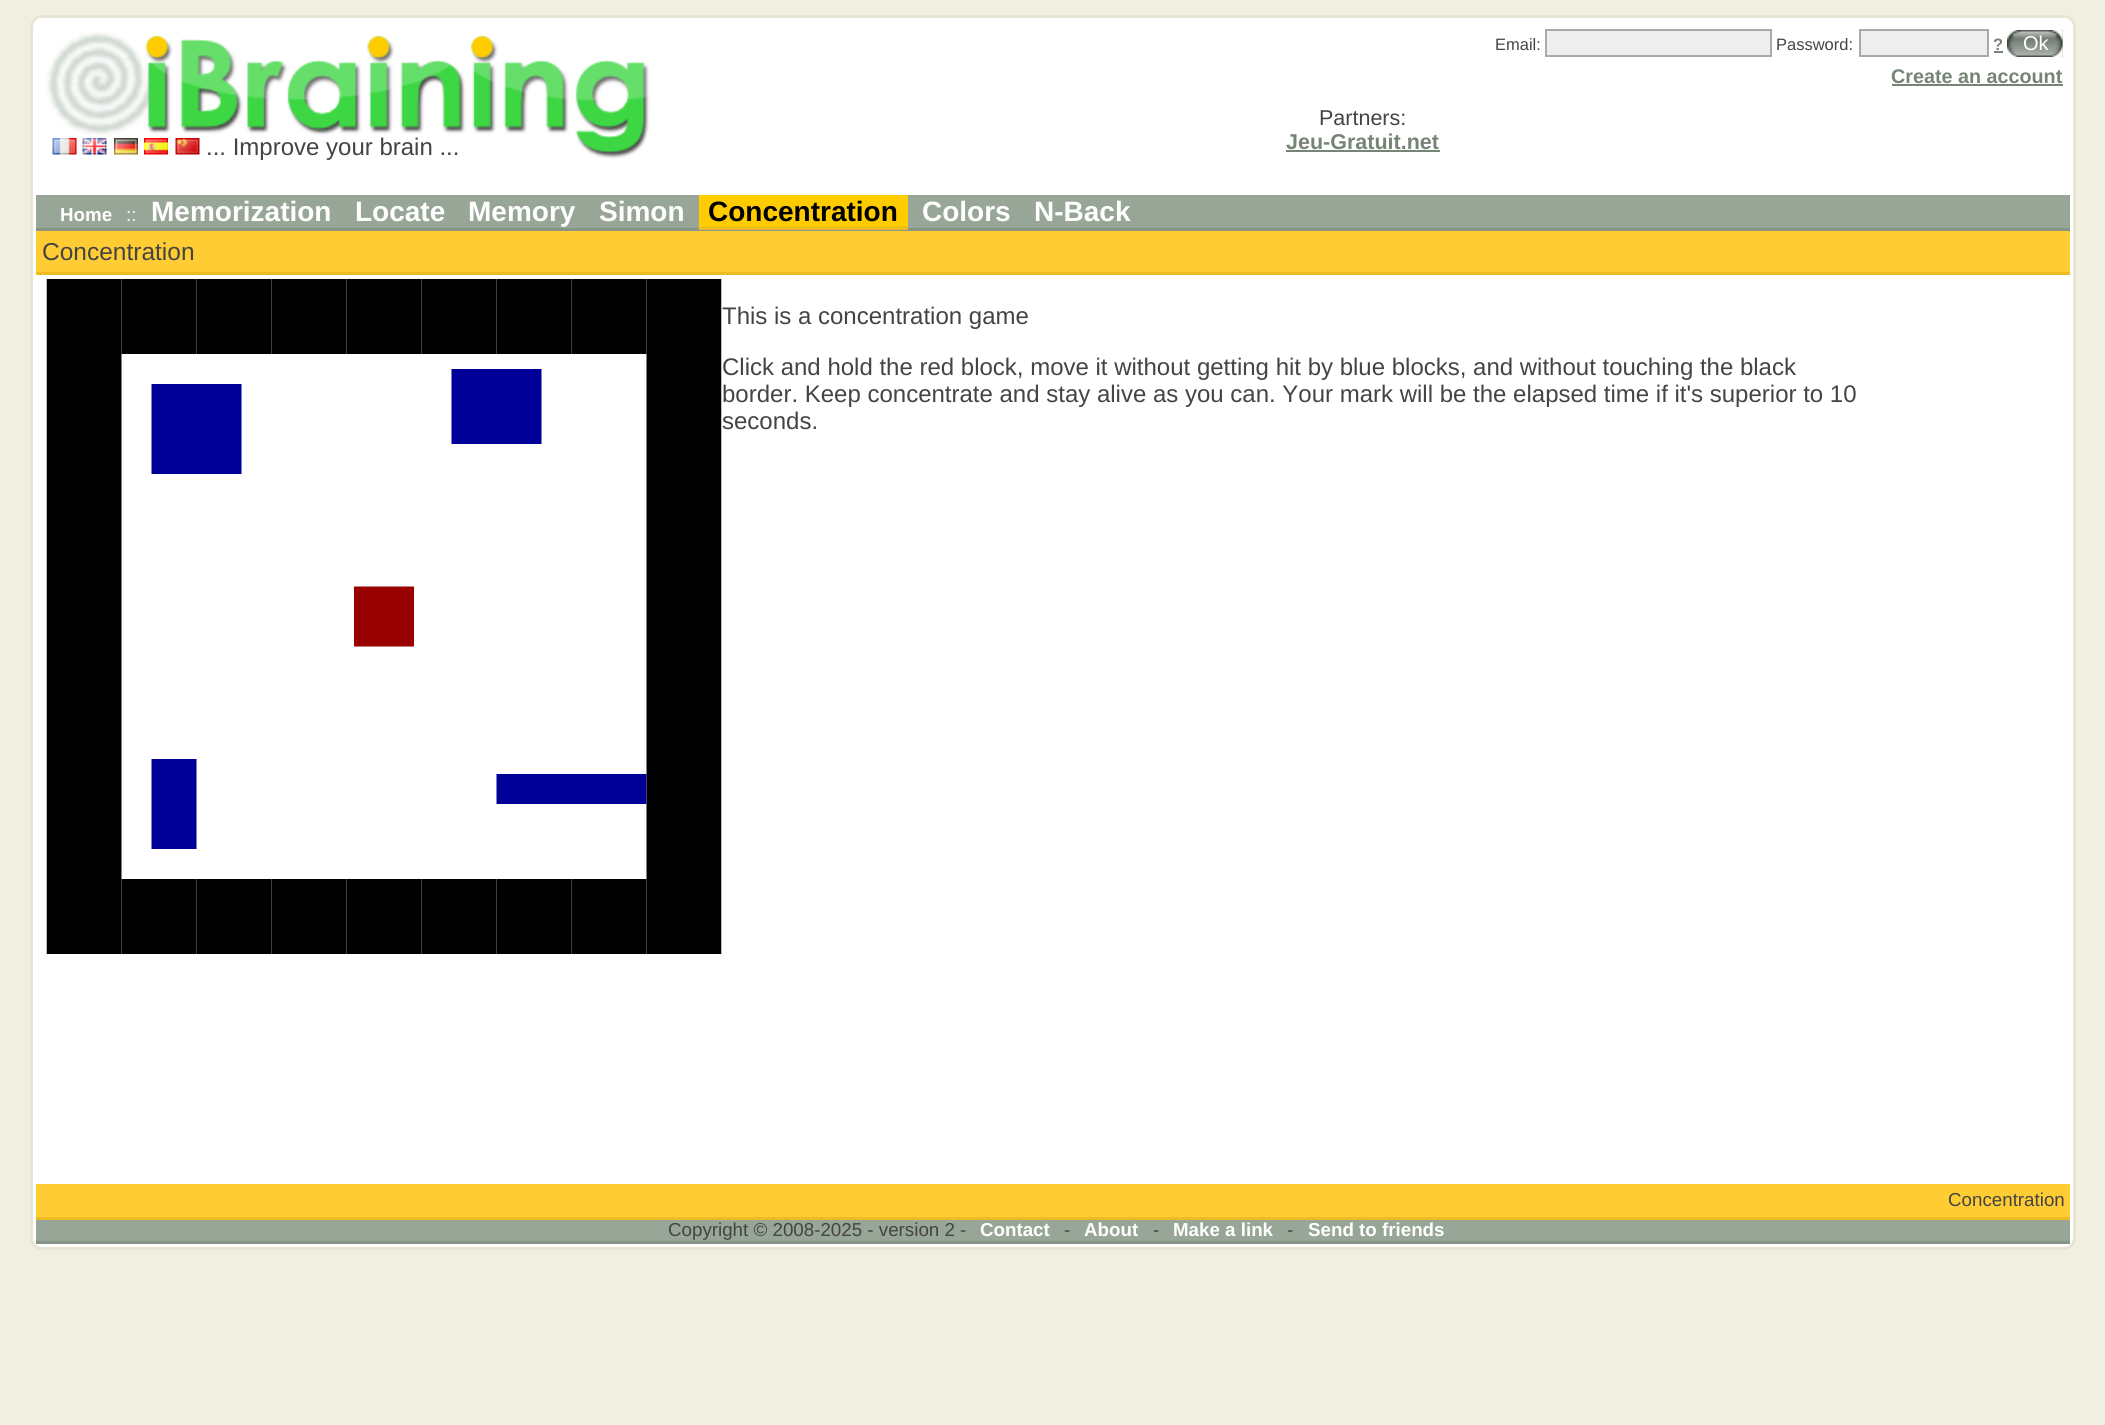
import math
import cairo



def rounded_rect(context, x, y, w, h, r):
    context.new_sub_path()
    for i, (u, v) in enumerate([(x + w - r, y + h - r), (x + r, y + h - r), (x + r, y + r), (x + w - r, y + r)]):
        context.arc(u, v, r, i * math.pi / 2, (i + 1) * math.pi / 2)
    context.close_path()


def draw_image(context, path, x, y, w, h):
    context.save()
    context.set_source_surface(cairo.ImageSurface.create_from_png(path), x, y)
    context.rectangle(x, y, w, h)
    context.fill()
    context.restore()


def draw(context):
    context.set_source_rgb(241 / 255, 239 / 255, 226 / 255)
    context.paint()
    context.set_source_rgb(1, 1, 1)
    rounded_rect(context, 31.5, 16.5, 2043, 1232, 10.5)
    context.fill_preserve()
    context.set_source_rgb(232 / 255, 229 / 255, 212 / 255)
    context.set_line_width(3)
    context.stroke()
    draw_image(context, "images/1.png", 46, 32, 604, 127)
    draw_image(context, "images/2.png", 52, 138, 25, 17)
    draw_image(context, "images/3.png", 82, 138, 25, 17)
    draw_image(context, "images/4.png", 114, 138, 24, 17)
    draw_image(context, "images/5.png", 144, 138, 24, 17)
    draw_image(context, "images/6.png", 175, 138, 25, 17)
    context.set_source_rgb(238 / 255, 238 / 255, 238 / 255)
    context.rectangle(1546, 30, 225, 26)
    context.fill_preserve()
    context.set_source_rgb(170 / 255, 170 / 255, 170 / 255)
    context.set_line_width(2)
    context.stroke()
    context.set_source_rgb(238 / 255, 238 / 255, 238 / 255)
    context.rectangle(1860, 30, 128, 26)
    context.fill_preserve()
    context.set_source_rgb(170 / 255, 170 / 255, 170 / 255)
    context.stroke()
    context.set_source_rgb(118 / 255, 132 / 255, 117 / 255)
    context.rectangle(1994, 51, 9, 2)
    context.fill()
    draw_image(context, "images/7.png", 2007, 30, 56, 27)
    draw_image(context, "images/8.png", 2022, 30, 41, 27)
    context.rectangle(1892, 84, 171, 2)
    context.fill()
    context.rectangle(1286, 150, 154, 2)
    context.fill()
    context.set_source_rgb(152 / 255, 166 / 255, 151 / 255)
    context.rectangle(36, 195, 2034, 33)
    context.fill()
    context.set_source_rgb(135 / 255, 149 / 255, 134 / 255)
    context.rectangle(36, 228, 2034, 3)
    context.fill()
    context.set_source_rgb(1, 204 / 255, 0)
    context.rectangle(699, 195, 209, 32)
    context.fill()
    context.set_source_rgb(238 / 255, 187 / 255, 34 / 255)
    context.rectangle(699, 227, 209, 3)
    context.fill()
    context.set_source_rgb(1, 204 / 255, 51 / 255)
    context.rectangle(36, 231, 2034, 41)
    context.fill()
    context.set_source_rgb(238 / 255, 187 / 255, 34 / 255)
    context.rectangle(36, 272, 2034, 3)
    context.fill()
    draw_image(context, "images/9.png", 46, 279, 676, 675)
    context.set_source_rgb(1, 204 / 255, 51 / 255)
    context.rectangle(36, 1184, 2034, 33)
    context.fill()
    context.set_source_rgb(238 / 255, 187 / 255, 34 / 255)
    context.rectangle(36, 1217, 2034, 3)
    context.fill()
    context.set_source_rgb(152 / 255, 166 / 255, 151 / 255)
    context.rectangle(36, 1220, 2034, 21)
    context.fill()
    context.set_source_rgb(135 / 255, 149 / 255, 134 / 255)
    context.rectangle(36, 1241, 2034, 3)
    context.fill()
    context.select_font_face("Liberation Sans")
    context.set_font_size(24)
    context.set_source_rgb(68 / 255, 68 / 255, 68 / 255)
    context.move_to(206, 155)
    context.show_text("... Improve your brain ...")
    context.set_font_size(16.5)
    context.move_to(1495, 50)
    context.show_text("Email:")
    context.move_to(1776, 50)
    context.show_text("Password:")
    context.select_font_face("Liberation Sans", cairo.FontSlant.NORMAL, cairo.FontWeight.BOLD)
    context.set_source_rgb(118 / 255, 132 / 255, 117 / 255)
    context.move_to(1993, 50)
    context.show_text("?")
    context.select_font_face("Liberation Sans")
    context.set_font_size(20)
    context.set_source_rgb(1, 1, 1)
    context.move_to(2023, 50)
    context.show_text("Ok")
    context.select_font_face("Liberation Sans", cairo.FontSlant.NORMAL, cairo.FontWeight.BOLD)
    context.set_font_size(19.75)
    context.set_source_rgb(118 / 255, 132 / 255, 117 / 255)
    context.move_to(1891, 83)
    context.show_text("Create an account")
    context.select_font_face("Liberation Sans")
    context.set_font_size(21.5)
    context.set_source_rgb(68 / 255, 68 / 255, 68 / 255)
    context.move_to(1319, 125)
    context.show_text("Partners:")
    context.select_font_face("Liberation Sans", cairo.FontSlant.NORMAL, cairo.FontWeight.BOLD)
    context.set_source_rgb(118 / 255, 132 / 255, 117 / 255)
    context.move_to(1286, 149)
    context.show_text("Jeu-Gratuit.net")
    context.set_font_size(18.75)
    context.set_source_rgb(1, 1, 1)
    context.move_to(60, 221)
    context.show_text("Home")
    context.select_font_face("Liberation Sans")
    context.move_to(126, 221)
    context.show_text("::")
    context.select_font_face("Liberation Sans", cairo.FontSlant.NORMAL, cairo.FontWeight.BOLD)
    context.set_font_size(28)
    context.move_to(151, 221)
    context.show_text("Memorization")
    context.move_to(355, 221)
    context.show_text("Locate")
    context.move_to(468, 221)
    context.show_text("Memory")
    context.move_to(599, 221)
    context.show_text("Simon")
    context.set_source_rgb(0, 0, 0)
    context.move_to(708, 221)
    context.show_text("Concentration")
    context.set_source_rgb(1, 1, 1)
    context.move_to(922, 221)
    context.show_text("Colors")
    context.move_to(1034, 221)
    context.show_text("N-Back")
    context.select_font_face("Liberation Sans")
    context.set_font_size(24.5)
    context.set_source_rgb(68 / 255, 68 / 255, 68 / 255)
    context.move_to(42, 260)
    context.show_text("Concentration")
    context.set_font_size(24)
    context.move_to(722, 324)
    context.show_text("This is a concentration game")
    context.move_to(722, 375)
    context.show_text("Click and hold the red block, move it without getting hit by blue blocks, and without touching the black")
    context.move_to(722, 402)
    context.show_text("border. Keep concentrate and stay alive as you can. Your mark will be the elapsed time if it's superior to 10")
    context.move_to(722, 429)
    context.show_text("seconds.")
    context.set_font_size(18.75)
    context.move_to(1948, 1206)
    context.show_text("Concentration")
    context.move_to(668, 1236)
    context.show_text("Copyright © 2008-2025 - version 2 -")
    context.select_font_face("Liberation Sans", cairo.FontSlant.NORMAL, cairo.FontWeight.BOLD)
    context.set_source_rgb(1, 1, 1)
    context.move_to(980, 1236)
    context.show_text("Contact")
    context.select_font_face("Liberation Sans")
    context.set_source_rgb(68 / 255, 68 / 255, 68 / 255)
    context.move_to(1064, 1236)
    context.show_text("-")
    context.select_font_face("Liberation Sans", cairo.FontSlant.NORMAL, cairo.FontWeight.BOLD)
    context.set_source_rgb(1, 1, 1)
    context.move_to(1084, 1236)
    context.show_text("About")
    context.select_font_face("Liberation Sans")
    context.set_source_rgb(68 / 255, 68 / 255, 68 / 255)
    context.move_to(1153, 1236)
    context.show_text("-")
    context.select_font_face("Liberation Sans", cairo.FontSlant.NORMAL, cairo.FontWeight.BOLD)
    context.set_source_rgb(1, 1, 1)
    context.move_to(1173, 1236)
    context.show_text("Make a link")
    context.select_font_face("Liberation Sans")
    context.set_source_rgb(68 / 255, 68 / 255, 68 / 255)
    context.move_to(1287, 1236)
    context.show_text("-")
    context.select_font_face("Liberation Sans", cairo.FontSlant.NORMAL, cairo.FontWeight.BOLD)
    context.set_source_rgb(1, 1, 1)
    context.move_to(1308, 1236)
    context.show_text("Send to friends")


surface = cairo.ImageSurface(cairo.Format.RGB24, 2105, 1425)
context = cairo.Context(surface)
options = cairo.FontOptions()
options.set_hint_metrics(cairo.HintMetrics.OFF)
options.set_hint_style(cairo.HintStyle.NONE)
context.set_font_options(options)
context.set_miter_limit(4)
draw(context)
surface.write_to_png("out.png")
